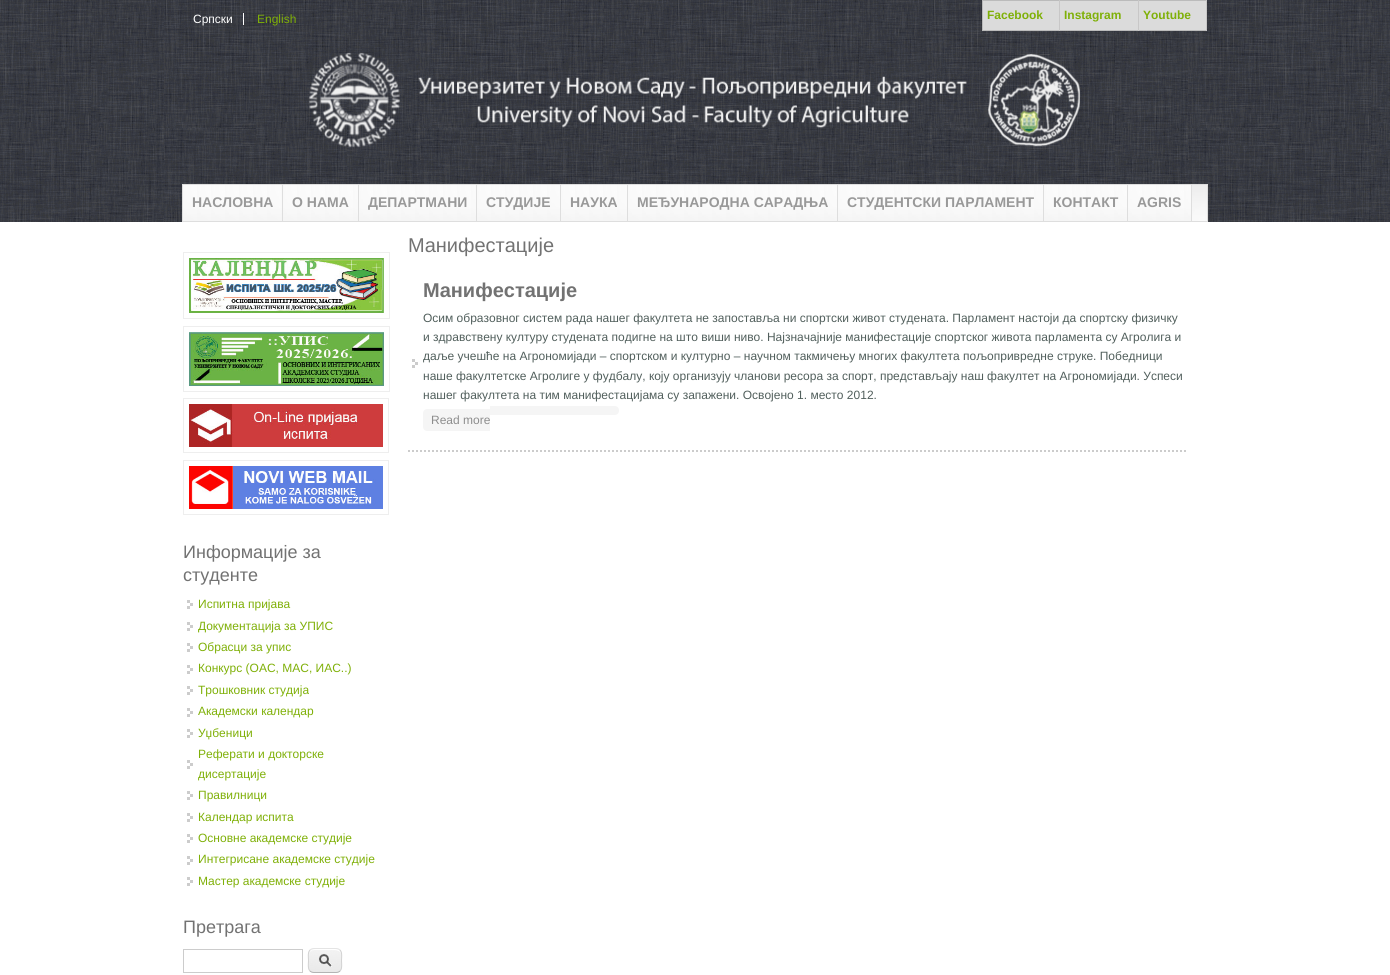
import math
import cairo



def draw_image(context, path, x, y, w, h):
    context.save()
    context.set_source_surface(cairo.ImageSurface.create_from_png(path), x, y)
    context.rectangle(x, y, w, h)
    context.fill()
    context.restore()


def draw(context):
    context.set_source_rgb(1, 1, 1)
    context.paint()
    draw_image(context, "images/1.png", 0, 0, 1390, 222)
    context.set_source_rgb(1, 1, 1)
    context.rectangle(243, 13, 1, 12)
    context.fill()
    context.set_source_rgb(187 / 255, 187 / 255, 187 / 255)
    context.rectangle(982, 0, 225, 1)
    context.fill()
    context.rectangle(982, 30, 225, 1)
    context.fill()
    context.rectangle(982, 0, 1, 31)
    context.fill()
    context.set_source_rgb(219 / 255, 219 / 255, 219 / 255)
    context.rectangle(983, 1, 76, 29)
    context.fill()
    context.set_source_rgb(200 / 255, 199 / 255, 199 / 255)
    context.rectangle(1059, 0, 1, 31)
    context.fill()
    context.set_source_rgb(219 / 255, 219 / 255, 219 / 255)
    context.rectangle(1060, 1, 78, 29)
    context.fill()
    context.set_source_rgb(200 / 255, 199 / 255, 199 / 255)
    context.rectangle(1138, 0, 1, 31)
    context.fill()
    context.set_source_rgb(219 / 255, 219 / 255, 219 / 255)
    context.rectangle(1139, 1, 67, 29)
    context.fill()
    context.set_source_rgb(200 / 255, 199 / 255, 199 / 255)
    context.rectangle(1206, 0, 1, 31)
    context.fill()
    draw_image(context, "images/2.png", 309, 52, 771, 96)
    draw_image(context, "images/3.png", 1192, 185, 15, 36)
    context.rectangle(182.5, 184.5, 1025, 37)
    context.set_source_rgb(222 / 255, 222 / 255, 222 / 255)
    context.set_line_width(1)
    context.stroke()
    context.rectangle(282, 185, 1, 36)
    context.fill()
    draw_image(context, "images/4.png", 183, 185, 99, 36)
    context.rectangle(358, 185, 1, 36)
    context.fill()
    draw_image(context, "images/5.png", 283, 185, 75, 36)
    context.rectangle(476, 185, 1, 36)
    context.fill()
    draw_image(context, "images/6.png", 359, 185, 117, 36)
    context.rectangle(560, 185, 1, 36)
    context.fill()
    draw_image(context, "images/7.png", 477, 185, 83, 36)
    context.rectangle(627, 185, 1, 36)
    context.fill()
    draw_image(context, "images/8.png", 561, 185, 66, 36)
    context.rectangle(837, 185, 1, 36)
    context.fill()
    draw_image(context, "images/9.png", 628, 185, 209, 36)
    context.rectangle(1043, 185, 1, 36)
    context.fill()
    draw_image(context, "images/10.png", 838, 185, 205, 36)
    context.rectangle(1127, 185, 1, 36)
    context.fill()
    draw_image(context, "images/7.png", 1044, 185, 83, 36)
    context.rectangle(1191, 185, 1, 36)
    context.fill()
    draw_image(context, "images/11.png", 1128, 185, 63, 36)
    draw_image(context, "images/12.png", 412, 359, 6, 9)
    context.new_path()
    context.move_to(408, 451)
    context.line_to(1187, 451)
    context.set_source_rgb(204 / 255, 204 / 255, 204 / 255)
    context.set_line_width(2)
    context.set_dash([2, 2])
    context.stroke()
    context.set_source_rgb(245 / 255, 245 / 255, 245 / 255)
    context.new_path()
    context.move_to(427, 409)
    context.line_to(490, 409)
    context.line_to(490, 431)
    context.line_to(427, 431)
    context.curve_to(425, 431, 423, 429, 423, 427)
    context.line_to(423, 413)
    context.curve_to(423, 411, 425, 409, 427, 409)
    context.close_path()
    context.fill()
    context.new_path()
    context.move_to(490, 406)
    context.line_to(615, 406)
    context.curve_to(617, 406, 619, 408, 619, 410)
    context.line_to(619, 411)
    context.curve_to(619, 413, 617, 415, 615, 415)
    context.line_to(490, 415)
    context.close_path()
    context.fill()
    context.rectangle(183.5, 252.5, 206, 66)
    context.set_source_rgb(238 / 255, 238 / 255, 238 / 255)
    context.set_line_width(1)
    context.set_dash([])
    context.stroke()
    draw_image(context, "images/13.png", 189, 258, 195, 55)
    context.rectangle(183.5, 326.5, 206, 65)
    context.stroke()
    draw_image(context, "images/14.png", 189, 332, 195, 54)
    context.rectangle(183.5, 398.5, 205, 54)
    context.stroke()
    draw_image(context, "images/15.png", 189, 404, 194, 43)
    context.rectangle(183.5, 460.5, 205, 54)
    context.stroke()
    draw_image(context, "images/16.png", 189, 466, 194, 43)
    draw_image(context, "images/12.png", 187, 600, 6, 9)
    draw_image(context, "images/12.png", 187, 622, 6, 9)
    draw_image(context, "images/12.png", 187, 643, 6, 9)
    draw_image(context, "images/12.png", 187, 665, 6, 9)
    draw_image(context, "images/12.png", 187, 686, 6, 9)
    draw_image(context, "images/12.png", 187, 708, 6, 9)
    draw_image(context, "images/12.png", 187, 729, 6, 9)
    draw_image(context, "images/12.png", 187, 760, 6, 9)
    draw_image(context, "images/12.png", 187, 791, 6, 9)
    draw_image(context, "images/12.png", 187, 813, 6, 9)
    draw_image(context, "images/12.png", 187, 834, 6, 9)
    draw_image(context, "images/12.png", 187, 856, 6, 9)
    draw_image(context, "images/12.png", 187, 877, 6, 9)
    context.rectangle(183.5, 949.5, 119, 23)
    context.set_source_rgb(204 / 255, 204 / 255, 204 / 255)
    context.stroke()
    draw_image(context, "images/17.png", 308, 949, 34, 24)
    context.set_source_rgb(1, 1, 1)
    context.set_fill_rule(cairo.FillRule.EVEN_ODD)
    context.new_path()
    context.move_to(314, 950)
    context.line_to(332, 950)
    context.curve_to(339.5, 950, 341, 951.5, 341, 956.5)
    context.curve_to(341, 949.5, 339, 949, 332.5, 949)
    context.line_to(317.5, 949)
    context.curve_to(311, 949, 309, 949.5, 309, 956.5)
    context.curve_to(309, 953, 310, 950, 314, 950)
    context.close_path()
    context.move_to(341, 967)
    context.line_to(341, 967.5)
    context.close_path()
    context.fill()
    context.new_path()
    context.move_to(310, 950)
    context.curve_to(311, 949, 312.5, 948.5, 314, 948.5)
    context.line_to(336, 948.5)
    context.curve_to(337.5, 948.5, 339, 949, 340, 950)
    context.set_source_rgb(228 / 255, 228 / 255, 228 / 255)
    context.stroke()
    context.new_path()
    context.move_to(340, 950)
    context.curve_to(342.5, 952.5, 341.5, 957.5, 341.5, 960.5)
    context.curve_to(341.5, 963.5, 342.5, 968.5, 340, 971)
    context.set_source_rgb(210 / 255, 210 / 255, 210 / 255)
    context.stroke()
    context.new_path()
    context.move_to(340, 971)
    context.curve_to(339, 972, 337.5, 972.5, 336, 972.5)
    context.line_to(314, 972.5)
    context.curve_to(312.5, 972.5, 311, 972, 310, 971)
    context.set_source_rgb(180 / 255, 180 / 255, 180 / 255)
    context.stroke()
    context.new_path()
    context.move_to(310, 971)
    context.curve_to(307.5, 968.5, 308.5, 963.5, 308.5, 960.5)
    context.curve_to(308.5, 957.5, 307.5, 952.5, 310, 950)
    context.set_source_rgb(210 / 255, 210 / 255, 210 / 255)
    context.stroke()
    context.select_font_face("Liberation Sans")
    context.set_font_size(12)
    context.set_source_rgb(1, 1, 1)
    context.move_to(193, 23)
    context.show_text("Српски")
    context.set_source_rgb(127 / 255, 176 / 255, 8 / 255)
    context.move_to(257, 23)
    context.show_text("English")
    context.select_font_face("Liberation Sans", cairo.FontSlant.NORMAL, cairo.FontWeight.BOLD)
    context.move_to(987, 19)
    context.show_text("Facebook")
    context.move_to(1064, 19)
    context.show_text("Instagram")
    context.move_to(1143, 19)
    context.show_text("Youtube")
    context.set_font_size(14)
    context.set_source_rgb(153 / 255, 153 / 255, 153 / 255)
    context.move_to(192, 207)
    context.show_text("НАСЛОВНА")
    context.move_to(292, 207)
    context.show_text("О НАМА")
    context.move_to(368, 207)
    context.show_text("ДЕПАРТМАНИ")
    context.move_to(486, 207)
    context.show_text("СТУДИЈЕ")
    context.move_to(570, 207)
    context.show_text("НАУКА")
    context.move_to(637, 207)
    context.show_text("МЕЂУНАРОДНА САРАДЊА")
    context.move_to(847, 207)
    context.show_text("СТУДЕНТСКИ ПАРЛАМЕНТ")
    context.move_to(1053, 207)
    context.show_text("КОНТАКТ")
    context.move_to(1137, 207)
    context.show_text("AGRIS")
    context.select_font_face("Liberation Sans")
    context.set_font_size(20)
    context.set_source_rgb(114 / 255, 114 / 255, 114 / 255)
    context.move_to(408, 252)
    context.show_text("Манифестације")
    context.select_font_face("Liberation Sans", cairo.FontSlant.NORMAL, cairo.FontWeight.BOLD)
    context.move_to(423, 297)
    context.show_text("Манифестације")
    context.select_font_face("Liberation Sans")
    context.set_font_size(12)
    context.set_source_rgb(81 / 255, 95 / 255, 92 / 255)
    context.move_to(423, 322)
    context.show_text("Осим образовног систем рада нашег факултета не запоставља ни спортски живот студената. Парламент настоји да спортску физичку")
    context.move_to(423, 341)
    context.show_text("и здравствену културу студената подигне на што виши ниво. Најзначајније манифестације спортског живота парламента су Агролига и")
    context.move_to(423, 360)
    context.show_text("даље учешће на Агрономијади – спортском и културно – научном такмичењу многих факултета пољопривредне струке. Победници")
    context.move_to(423, 380)
    context.show_text("наше факултетске Агролиге у фудбалу, коју организују чланови ресора за спорт, представљају наш факултет на Агрономијади. Успеси")
    context.move_to(423, 399)
    context.show_text("нашег факултета на тим манифестацијама су запажени. Освојено 1. место 2012.")
    context.set_source_rgb(141 / 255, 141 / 255, 141 / 255)
    context.move_to(431, 424)
    context.show_text("Read more")
    context.set_font_size(18)
    context.set_source_rgb(114 / 255, 114 / 255, 114 / 255)
    context.move_to(183, 558)
    context.show_text("Информације за")
    context.move_to(183, 581)
    context.show_text("студенте")
    context.set_font_size(12)
    context.set_source_rgb(127 / 255, 176 / 255, 8 / 255)
    context.move_to(198, 608)
    context.show_text("Испитна пријава")
    context.move_to(198, 630)
    context.show_text("Документација за УПИС")
    context.move_to(198, 651)
    context.show_text("Обрасци за упис")
    context.move_to(198, 672)
    context.show_text("Конкурс (ОАС, МАС, ИАС..)")
    context.move_to(198, 694)
    context.show_text("Трошковник студија")
    context.move_to(198, 715)
    context.show_text("Академски календар")
    context.move_to(198, 737)
    context.show_text("Уџбеници")
    context.move_to(198, 758)
    context.show_text("Реферати и докторске")
    context.move_to(198, 778)
    context.show_text("дисертације")
    context.move_to(198, 799)
    context.show_text("Правилници")
    context.move_to(198, 821)
    context.show_text("Календар испита")
    context.move_to(198, 842)
    context.show_text("Oсновне академске студије")
    context.move_to(198, 863)
    context.show_text("Интегрисане академске студије")
    context.move_to(198, 885)
    context.show_text("Мастер академске студије")
    context.set_font_size(18)
    context.set_source_rgb(114 / 255, 114 / 255, 114 / 255)
    context.move_to(183, 933)
    context.show_text("Претрага")


surface = cairo.ImageSurface(cairo.Format.RGB24, 1390, 975)
context = cairo.Context(surface)
options = cairo.FontOptions()
options.set_hint_metrics(cairo.HintMetrics.OFF)
options.set_hint_style(cairo.HintStyle.NONE)
context.set_font_options(options)
context.set_miter_limit(4)
draw(context)
surface.write_to_png("out.png")
